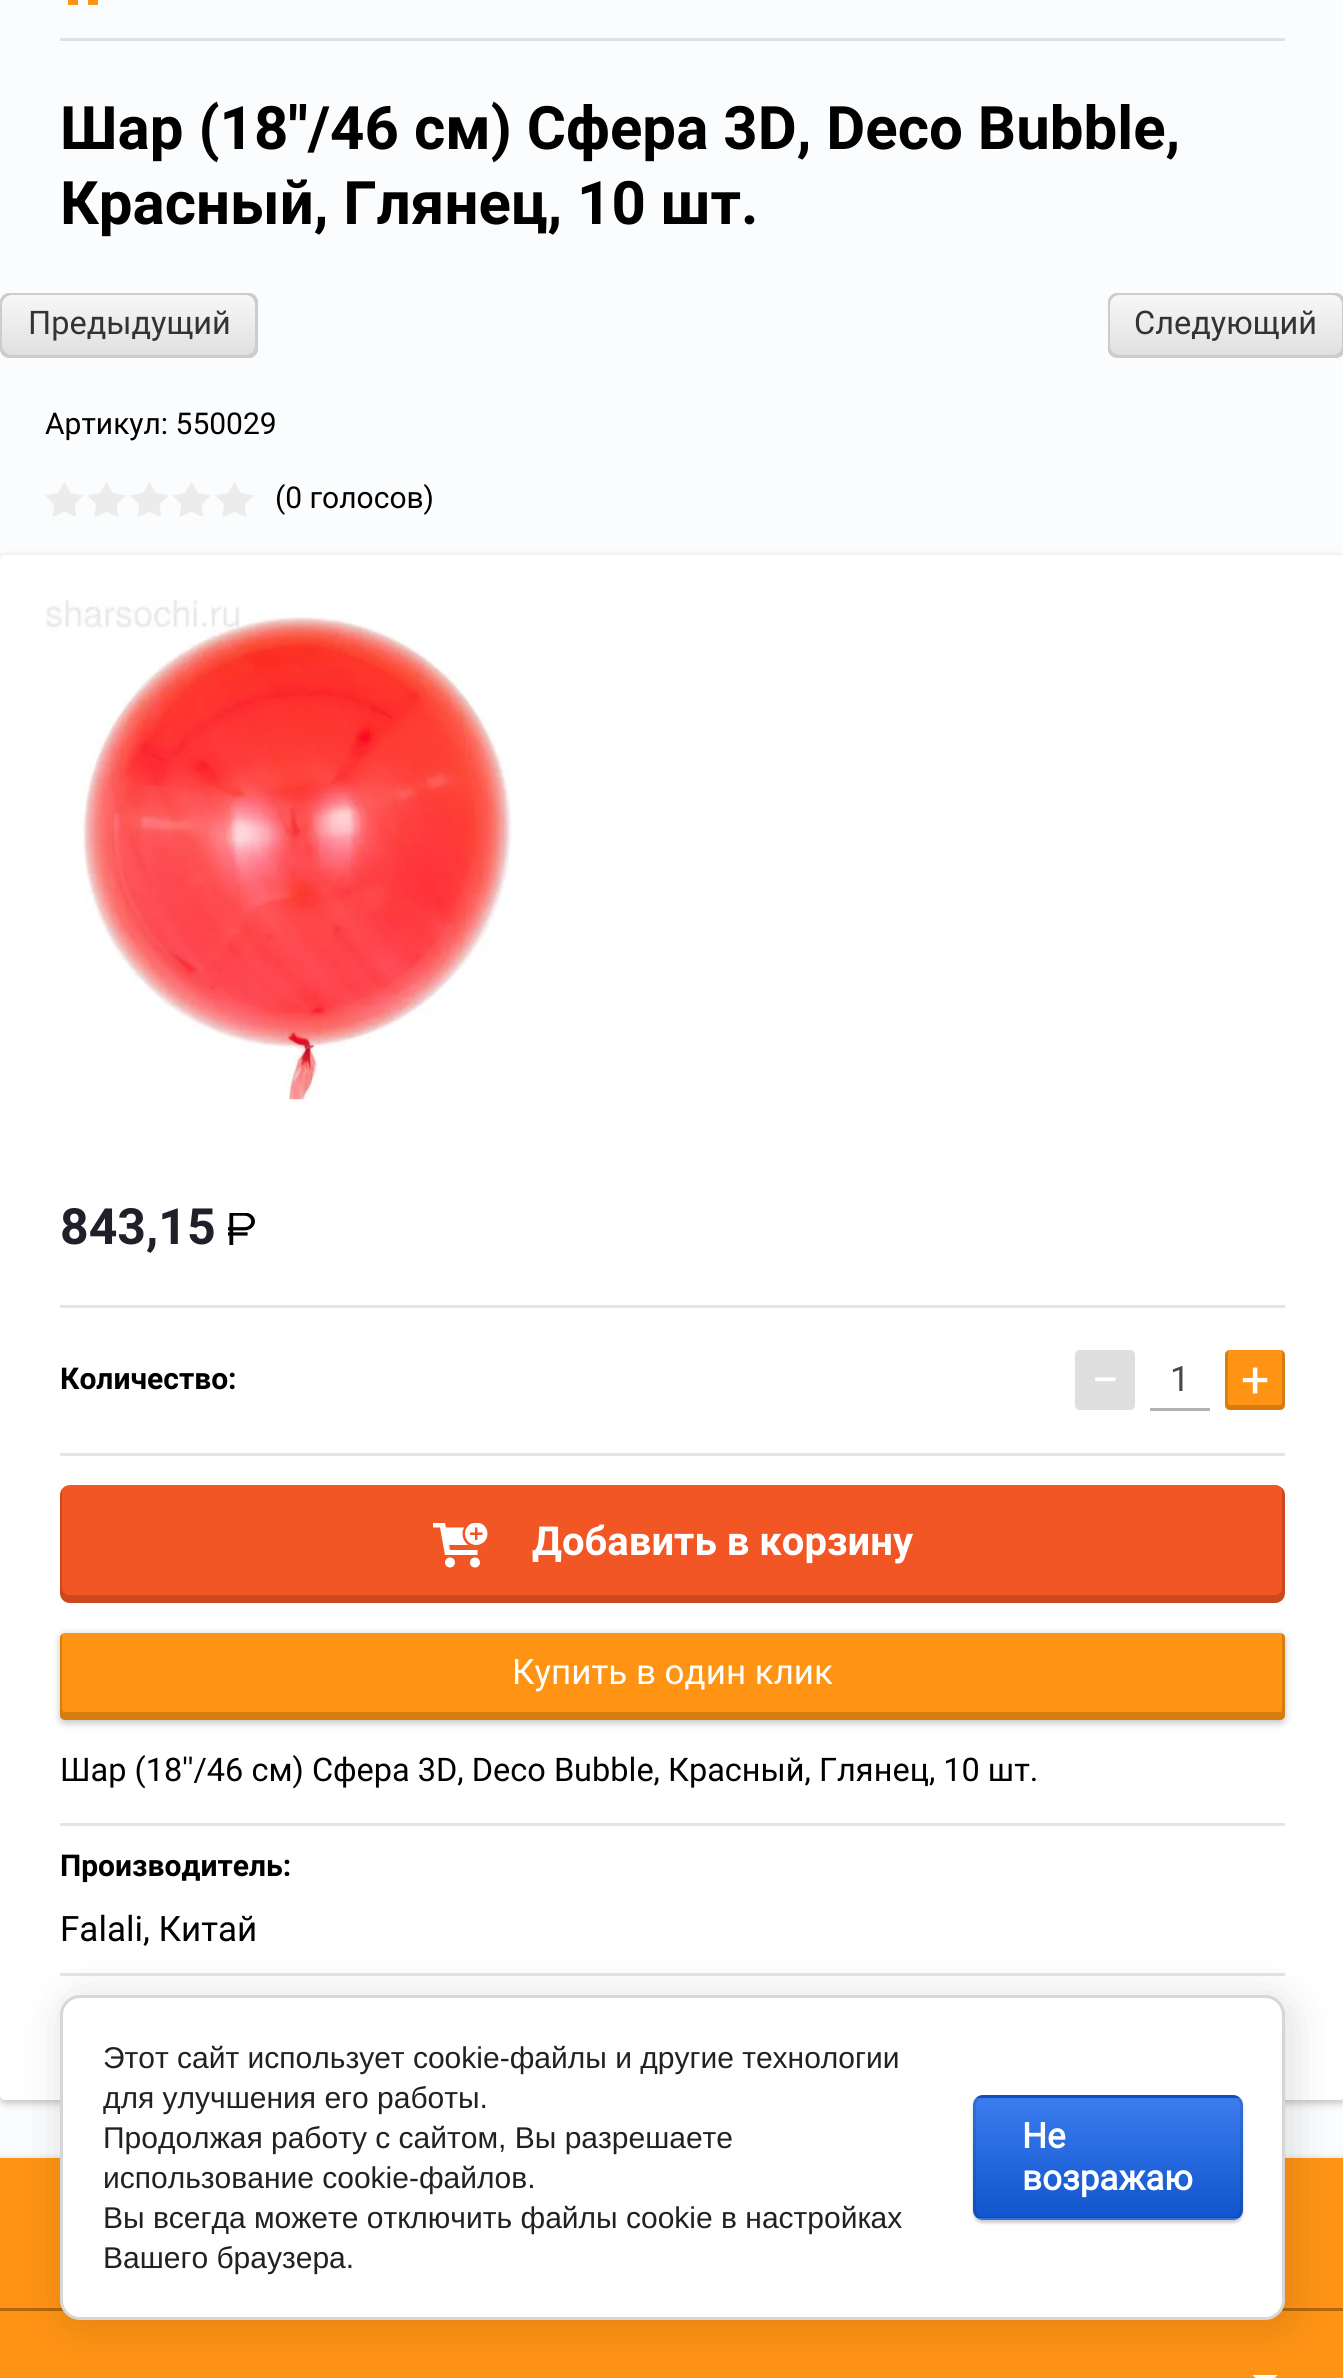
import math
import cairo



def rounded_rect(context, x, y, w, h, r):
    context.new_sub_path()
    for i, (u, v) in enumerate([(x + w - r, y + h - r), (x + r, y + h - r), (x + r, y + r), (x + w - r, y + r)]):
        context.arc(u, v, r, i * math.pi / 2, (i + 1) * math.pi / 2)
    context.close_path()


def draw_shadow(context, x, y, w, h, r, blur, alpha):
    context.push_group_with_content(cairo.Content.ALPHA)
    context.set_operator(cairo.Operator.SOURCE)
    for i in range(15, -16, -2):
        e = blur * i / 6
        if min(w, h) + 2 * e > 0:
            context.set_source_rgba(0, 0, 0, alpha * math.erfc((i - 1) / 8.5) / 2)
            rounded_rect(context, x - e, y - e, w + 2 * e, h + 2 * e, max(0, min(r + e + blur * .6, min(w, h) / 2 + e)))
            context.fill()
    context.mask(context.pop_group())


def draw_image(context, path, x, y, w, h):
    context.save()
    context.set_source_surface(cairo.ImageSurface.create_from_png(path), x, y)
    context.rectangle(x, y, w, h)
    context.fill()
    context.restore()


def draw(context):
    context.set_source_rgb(251 / 255, 252 / 255, 253 / 255)
    context.paint()
    context.set_source_rgb(225 / 255, 226 / 255, 227 / 255)
    context.rectangle(60, 38, 1225, 3)
    context.fill()
    context.set_source_rgb(1, 147 / 255, 20 / 255)
    context.set_fill_rule(cairo.FillRule.EVEN_ODD)
    context.new_path()
    context.move_to(98, -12)
    context.line_to(98, 5)
    context.line_to(88, 5)
    context.line_to(88, -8)
    context.line_to(78, -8)
    context.line_to(78, 5)
    context.line_to(68, 5)
    context.line_to(68, -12)
    context.line_to(60, -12)
    context.line_to(82, -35)
    context.line_to(105, -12)
    context.close_path()
    context.fill()
    gradient = cairo.LinearGradient(129, 293, 129, 358)
    gradient.add_color_stop_rgba(0, 248 / 255, 248 / 255, 248 / 255, 1)
    gradient.add_color_stop_rgba(1, 223 / 255, 223 / 255, 223 / 255, 1)
    context.set_source(gradient)
    rounded_rect(context, 0, 293, 258, 65, 10)
    context.fill()
    context.set_source_rgb(204 / 255, 204 / 255, 204 / 255)
    context.set_fill_rule(cairo.FillRule.WINDING)
    context.new_path()
    context.move_to(3, 296)
    context.curve_to(1, 298, 0, 300, 0, 303)
    context.line_to(0, 348)
    context.curve_to(0, 354, 4, 358, 10, 358)
    context.line_to(248, 358)
    context.curve_to(252, 358, 255, 356, 257, 353)
    context.curve_to(255, 354, 253, 355, 250, 355)
    context.line_to(12, 355)
    context.curve_to(7, 355, 2, 351, 2, 345)
    context.line_to(2, 300)
    context.close_path()
    context.fill()
    context.new_path()
    context.move_to(8, 295)
    context.line_to(245, 295)
    context.curve_to(251, 295, 255, 299, 255, 305)
    context.line_to(255, 350)
    context.curve_to(255, 353, 254, 355, 253, 357)
    context.curve_to(256, 355, 258, 352, 258, 348)
    context.line_to(258, 303)
    context.curve_to(258, 297, 254, 293, 248, 293)
    context.line_to(10, 293)
    context.curve_to(7, 293, 4, 294, 2, 296)
    context.curve_to(4, 295, 6, 295, 8, 295)
    context.close_path()
    context.fill()
    context.new_path()
    context.move_to(1, 353)
    context.curve_to(3, 356, 6, 358, 10, 358)
    context.line_to(248, 358)
    context.curve_to(254, 358, 258, 354, 258, 348)
    context.line_to(258, 303)
    context.curve_to(258, 300, 256, 297, 254, 295)
    context.curve_to(255, 296, 255, 298, 255, 300)
    context.line_to(255, 345)
    context.curve_to(255, 351, 251, 355, 245, 355)
    context.line_to(8, 355)
    context.curve_to(5, 355, 3, 354, 1, 353)
    context.close_path()
    context.fill()
    context.new_path()
    context.move_to(12, 295)
    context.line_to(250, 295)
    context.curve_to(252, 295, 254, 295, 256, 296)
    context.curve_to(254, 294, 251, 293, 248, 293)
    context.line_to(10, 293)
    context.curve_to(4, 293, 0, 297, 0, 303)
    context.line_to(0, 348)
    context.curve_to(0, 351, 2, 354, 4, 356)
    context.curve_to(3, 354, 2, 352, 2, 350)
    context.line_to(2, 305)
    context.curve_to(2, 299, 7, 295, 12, 295)
    context.close_path()
    context.fill()
    gradient = cairo.LinearGradient(1226, 293, 1226, 358)
    gradient.add_color_stop_rgba(0, 248 / 255, 248 / 255, 248 / 255, 1)
    gradient.add_color_stop_rgba(1, 223 / 255, 223 / 255, 223 / 255, 1)
    context.set_source(gradient)
    rounded_rect(context, 1108, 293, 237, 65, 10)
    context.fill()
    context.set_source_rgb(204 / 255, 204 / 255, 204 / 255)
    context.new_path()
    context.move_to(1111, 296)
    context.curve_to(1109, 298, 1108, 300, 1108, 303)
    context.line_to(1108, 348)
    context.curve_to(1108, 354, 1112, 358, 1118, 358)
    context.line_to(1335, 358)
    context.curve_to(1339, 358, 1342, 356, 1343, 353)
    context.curve_to(1342, 354, 1340, 355, 1338, 355)
    context.line_to(1120, 355)
    context.curve_to(1114, 355, 1110, 351, 1110, 345)
    context.line_to(1110, 300)
    context.close_path()
    context.fill()
    context.new_path()
    context.move_to(1115, 295)
    context.line_to(1332, 295)
    context.curve_to(1338, 295, 1342, 299, 1342, 305)
    context.line_to(1342, 350)
    context.curve_to(1342, 353, 1341, 355, 1340, 357)
    context.curve_to(1343, 355, 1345, 352, 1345, 348)
    context.line_to(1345, 303)
    context.curve_to(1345, 297, 1341, 293, 1335, 293)
    context.line_to(1118, 293)
    context.curve_to(1115, 293, 1113, 294, 1111, 296)
    context.close_path()
    context.fill()
    context.new_path()
    context.move_to(1110, 354)
    context.curve_to(1112, 356, 1115, 358, 1118, 358)
    context.line_to(1335, 358)
    context.curve_to(1341, 358, 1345, 354, 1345, 348)
    context.line_to(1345, 303)
    context.curve_to(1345, 300, 1343, 297, 1341, 295)
    context.curve_to(1342, 296, 1342, 298, 1342, 300)
    context.line_to(1342, 345)
    context.curve_to(1342, 351, 1338, 355, 1332, 355)
    context.line_to(1115, 355)
    context.curve_to(1113, 355, 1111, 355, 1110, 354)
    context.close_path()
    context.fill()
    context.new_path()
    context.move_to(1120, 295)
    context.line_to(1338, 295)
    context.line_to(1342, 296)
    context.curve_to(1340, 294, 1338, 293, 1335, 293)
    context.line_to(1118, 293)
    context.curve_to(1112, 293, 1108, 297, 1108, 303)
    context.line_to(1108, 348)
    context.curve_to(1108, 351, 1109, 354, 1111, 356)
    context.curve_to(1110, 354, 1110, 352, 1110, 350)
    context.line_to(1110, 305)
    context.curve_to(1110, 299, 1114, 295, 1120, 295)
    context.close_path()
    context.fill()
    draw_image(context, "images/1.png", 45, 482, 209, 35)
    context.set_source_rgb(0, 0, 0)
    draw_shadow(context, 0, 558, 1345, 1545, 5, 4, 0.24)
    context.set_source_rgb(1, 1, 1)
    rounded_rect(context, 0, 555, 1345, 1545, 5)
    context.fill()
    draw_image(context, "images/2.png", 45, 599, 467, 501)
    draw_image(context, "images/3.png", 228, 1213, 27, 32)
    context.set_source_rgb(229 / 255, 229 / 255, 229 / 255)
    context.rectangle(60, 1305, 1225, 3)
    context.fill()
    context.rectangle(60, 1453, 1225, 3)
    context.fill()
    context.set_source_rgb(223 / 255, 223 / 255, 223 / 255)
    rounded_rect(context, 1075, 1350, 60, 60, 5)
    context.fill()
    context.set_source_rgb(178 / 255, 178 / 255, 178 / 255)
    context.rectangle(1150, 1408, 60, 3)
    context.fill()
    context.set_source_rgb(1, 147 / 255, 20 / 255)
    rounded_rect(context, 1225, 1350, 60, 60, 5)
    context.fill()
    context.set_source_rgba(0, 0, 0, 0.16)
    context.new_path()
    context.move_to(1230, 1350)
    context.curve_to(1227, 1350, 1225, 1352, 1225, 1355)
    context.line_to(1225, 1405)
    context.curve_to(1225, 1408, 1227, 1410, 1230, 1410)
    context.line_to(1280, 1410)
    context.curve_to(1283, 1410, 1285, 1408, 1285, 1405)
    context.line_to(1285, 1355)
    context.curve_to(1285, 1352, 1283, 1350, 1280, 1350)
    context.curve_to(1283, 1350, 1282, 1356, 1282, 1360)
    context.line_to(1282, 1394)
    context.curve_to(1282, 1406, 1284, 1405, 1272, 1405)
    context.line_to(1230, 1405)
    context.line_to(1228, 1404)
    context.curve_to(1227, 1402, 1228, 1351, 1228, 1351)
    context.close_path()
    context.fill()
    context.set_source_rgb(242 / 255, 86 / 255, 37 / 255)
    rounded_rect(context, 60, 1485, 1225, 118, 10)
    context.fill()
    context.set_source_rgba(0, 0, 0, 0.16)
    context.new_path()
    context.move_to(62, 1489)
    context.curve_to(61, 1491, 60, 1493, 60, 1495)
    context.line_to(60, 1593)
    context.curve_to(60, 1599, 64, 1603, 70, 1603)
    context.line_to(1275, 1603)
    context.curve_to(1281, 1603, 1285, 1599, 1285, 1593)
    context.line_to(1285, 1495)
    context.curve_to(1285, 1492, 1284, 1489, 1282, 1488)
    context.line_to(1282, 1490)
    context.line_to(1282, 1588)
    context.curve_to(1282, 1592, 1279, 1595, 1275, 1595)
    context.line_to(70, 1595)
    context.curve_to(66, 1595, 62, 1592, 62, 1588)
    context.close_path()
    context.fill()
    draw_image(context, "images/4.png", 433, 1523, 55, 45)
    context.set_source_rgb(0, 0, 0)
    draw_shadow(context, 60, 1635, 1225, 88, 5, 4, 0.24)
    context.set_source_rgb(1, 147 / 255, 20 / 255)
    rounded_rect(context, 60, 1633, 1225, 87, 5)
    context.fill()
    context.set_source_rgba(0, 0, 0, 0.16)
    context.new_path()
    context.move_to(62, 1634)
    context.curve_to(61, 1635, 60, 1636, 60, 1638)
    context.line_to(60, 1715)
    context.curve_to(60, 1718, 62, 1720, 65, 1720)
    context.line_to(1280, 1720)
    context.curve_to(1283, 1720, 1285, 1718, 1285, 1715)
    context.line_to(1285, 1638)
    context.curve_to(1285, 1636, 1284, 1634, 1282, 1633)
    context.line_to(1282, 1710)
    context.curve_to(1282, 1711, 1281, 1712, 1280, 1712)
    context.line_to(65, 1712)
    context.curve_to(64, 1712, 62, 1711, 62, 1710)
    context.close_path()
    context.fill()
    context.set_source_rgb(229 / 255, 229 / 255, 229 / 255)
    context.rectangle(60, 1823, 1225, 3)
    context.fill()
    context.rectangle(60, 1973, 1225, 3)
    context.fill()
    context.set_source_rgb(0, 0, 0)
    draw_shadow(context, 0, 2160, 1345, 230, 0, 4, 0.24)
    context.set_source_rgb(1, 147 / 255, 20 / 255)
    context.rectangle(0, 2158, 1343, 220)
    context.fill()
    context.set_source_rgb(179 / 255, 103 / 255, 14 / 255)
    context.rectangle(0, 2308, 1343, 3)
    context.fill()
    context.set_source_rgb(1, 1, 1)
    context.new_path()
    context.move_to(1252.5, 2375)
    context.line_to(1277.5, 2375)
    context.line_to(1265, 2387.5)
    context.close_path()
    context.fill()
    context.set_source_rgb(0, 0, 0)
    draw_shadow(context, 65, 2000, 1225, 325, 20, 22.5, 0.14)
    context.set_source_rgb(1, 1, 1)
    rounded_rect(context, 61.5, 1996.5, 1222, 322, 18.5)
    context.fill_preserve()
    context.set_source_rgb(214 / 255, 214 / 255, 214 / 255)
    context.set_line_width(3)
    context.stroke()
    context.set_source_rgb(0, 0, 0)
    draw_shadow(context, 973, 2098, 270, 125, 10, 1.5, 0.2)
    context.save()
    rounded_rect(context, 973, 2095, 270, 125, 10)
    context.clip()
    gradient = cairo.LinearGradient(1108, 1978, 1108, 2098)
    gradient.add_color_stop_rgba(0, 59 / 255, 124 / 255, 239 / 255, 1)
    gradient.add_color_stop_rgba(1, 17 / 255, 85 / 255, 204 / 255, 1)
    context.set_source(gradient)
    context.rectangle(973, 2095, 270, 3)
    context.fill()
    gradient = cairo.LinearGradient(1108, 2098, 1108, 2218)
    gradient.add_color_stop_rgba(0, 59 / 255, 124 / 255, 239 / 255, 1)
    gradient.add_color_stop_rgba(1, 17 / 255, 85 / 255, 204 / 255, 1)
    context.set_source(gradient)
    context.rectangle(973, 2098, 270, 120)
    context.fill()
    gradient = cairo.LinearGradient(1108, 2218, 1108, 2338)
    gradient.add_color_stop_rgba(0, 59 / 255, 124 / 255, 239 / 255, 1)
    gradient.add_color_stop_rgba(1, 17 / 255, 85 / 255, 204 / 255, 1)
    context.set_source(gradient)
    context.rectangle(973, 2218, 270, 2)
    context.fill()
    context.restore()
    rounded_rect(context, 974.5, 2096.5, 267, 122, 8.5)
    context.set_source_rgba(0, 0, 0, 0.1)
    context.stroke()
    context.select_font_face("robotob", cairo.FontSlant.NORMAL, cairo.FontWeight.BOLD)
    context.set_font_size(60)
    context.set_source_rgb(0, 0, 0)
    context.move_to(60, 149)
    context.show_text("Шар (18''/46 см) Сфера 3D, Deco Bubble,")
    context.move_to(60, 224)
    context.show_text("Красный, Глянец, 10 шт.")
    context.select_font_face("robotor")
    context.set_font_size(32.5)
    context.set_source_rgb(51 / 255, 51 / 255, 51 / 255)
    context.move_to(28, 334)
    context.show_text("Предыдущий")
    context.move_to(1134, 334)
    context.show_text("Следующий")
    context.set_font_size(30)
    context.set_source_rgb(0, 0, 0)
    context.move_to(45, 434)
    context.show_text("Артикул: 550029")
    context.move_to(275, 508)
    context.show_text("(0 голосов)")
    context.select_font_face("robotob", cairo.FontSlant.NORMAL, cairo.FontWeight.BOLD)
    context.set_font_size(50)
    context.set_source_rgb(32 / 255, 32 / 255, 42 / 255)
    context.move_to(60, 1244)
    context.show_text("843,15")
    context.set_font_size(30)
    context.set_source_rgb(0, 0, 0)
    context.move_to(60, 1389)
    context.show_text("Количество:")
    context.select_font_face("robotor")
    context.set_font_size(50)
    context.set_source_rgb(1, 1, 1)
    context.move_to(1091, 1397)
    context.show_text("−")
    context.set_font_size(35)
    context.set_source_rgb(72 / 255, 72 / 255, 72 / 255)
    context.move_to(1170, 1391)
    context.show_text("1")
    context.set_font_size(50)
    context.set_source_rgb(1, 1, 1)
    context.move_to(1241, 1397)
    context.show_text("+")
    context.select_font_face("robotob", cairo.FontSlant.NORMAL, cairo.FontWeight.BOLD)
    context.set_font_size(40)
    context.move_to(532, 1555)
    context.show_text("Добавить в корзину")
    context.select_font_face("robotor")
    context.set_font_size(35)
    context.move_to(512, 1684)
    context.show_text("Купить в один клик")
    context.set_font_size(32.5)
    context.set_source_rgb(0, 0, 0)
    context.move_to(60, 1781)
    context.show_text("Шар (18''/46 см) Сфера 3D, Deco Bubble, Красный, Глянец, 10 шт.")
    context.select_font_face("robotob", cairo.FontSlant.NORMAL, cairo.FontWeight.BOLD)
    context.set_font_size(30)
    context.move_to(60, 1876)
    context.show_text("Производитель:")
    context.select_font_face("robotor")
    context.set_font_size(35)
    context.move_to(60, 1941)
    context.show_text("Falali, Китай")
    context.select_font_face("Liberation Sans")
    context.set_font_size(30)
    context.set_source_rgb(33 / 255, 33 / 255, 33 / 255)
    context.move_to(103, 2068)
    context.show_text("Этот сайт использует cookie-файлы и другие технологии")
    context.move_to(103, 2108)
    context.show_text("для улучшения его работы.")
    context.move_to(103, 2148)
    context.show_text("Продолжая работу с сайтом, Вы разрешаете")
    context.move_to(103, 2188)
    context.show_text("использование cookie-файлов.")
    context.move_to(103, 2228)
    context.show_text("Вы всегда можете отключить файлы cookie в настройках")
    context.move_to(103, 2268)
    context.show_text("Вашего браузера.")
    context.select_font_face("robotor", cairo.FontSlant.NORMAL, cairo.FontWeight.BOLD)
    context.set_font_size(35)
    context.set_source_rgb(1, 1, 1)
    context.move_to(1022, 2148)
    context.show_text("Не")
    context.move_to(1022, 2190)
    context.show_text("возражаю")


surface = cairo.ImageSurface(cairo.Format.RGB24, 1343, 2378)
context = cairo.Context(surface)
options = cairo.FontOptions()
options.set_hint_metrics(cairo.HintMetrics.OFF)
options.set_hint_style(cairo.HintStyle.NONE)
context.set_font_options(options)
context.set_miter_limit(4)
draw(context)
surface.write_to_png("out.png")
